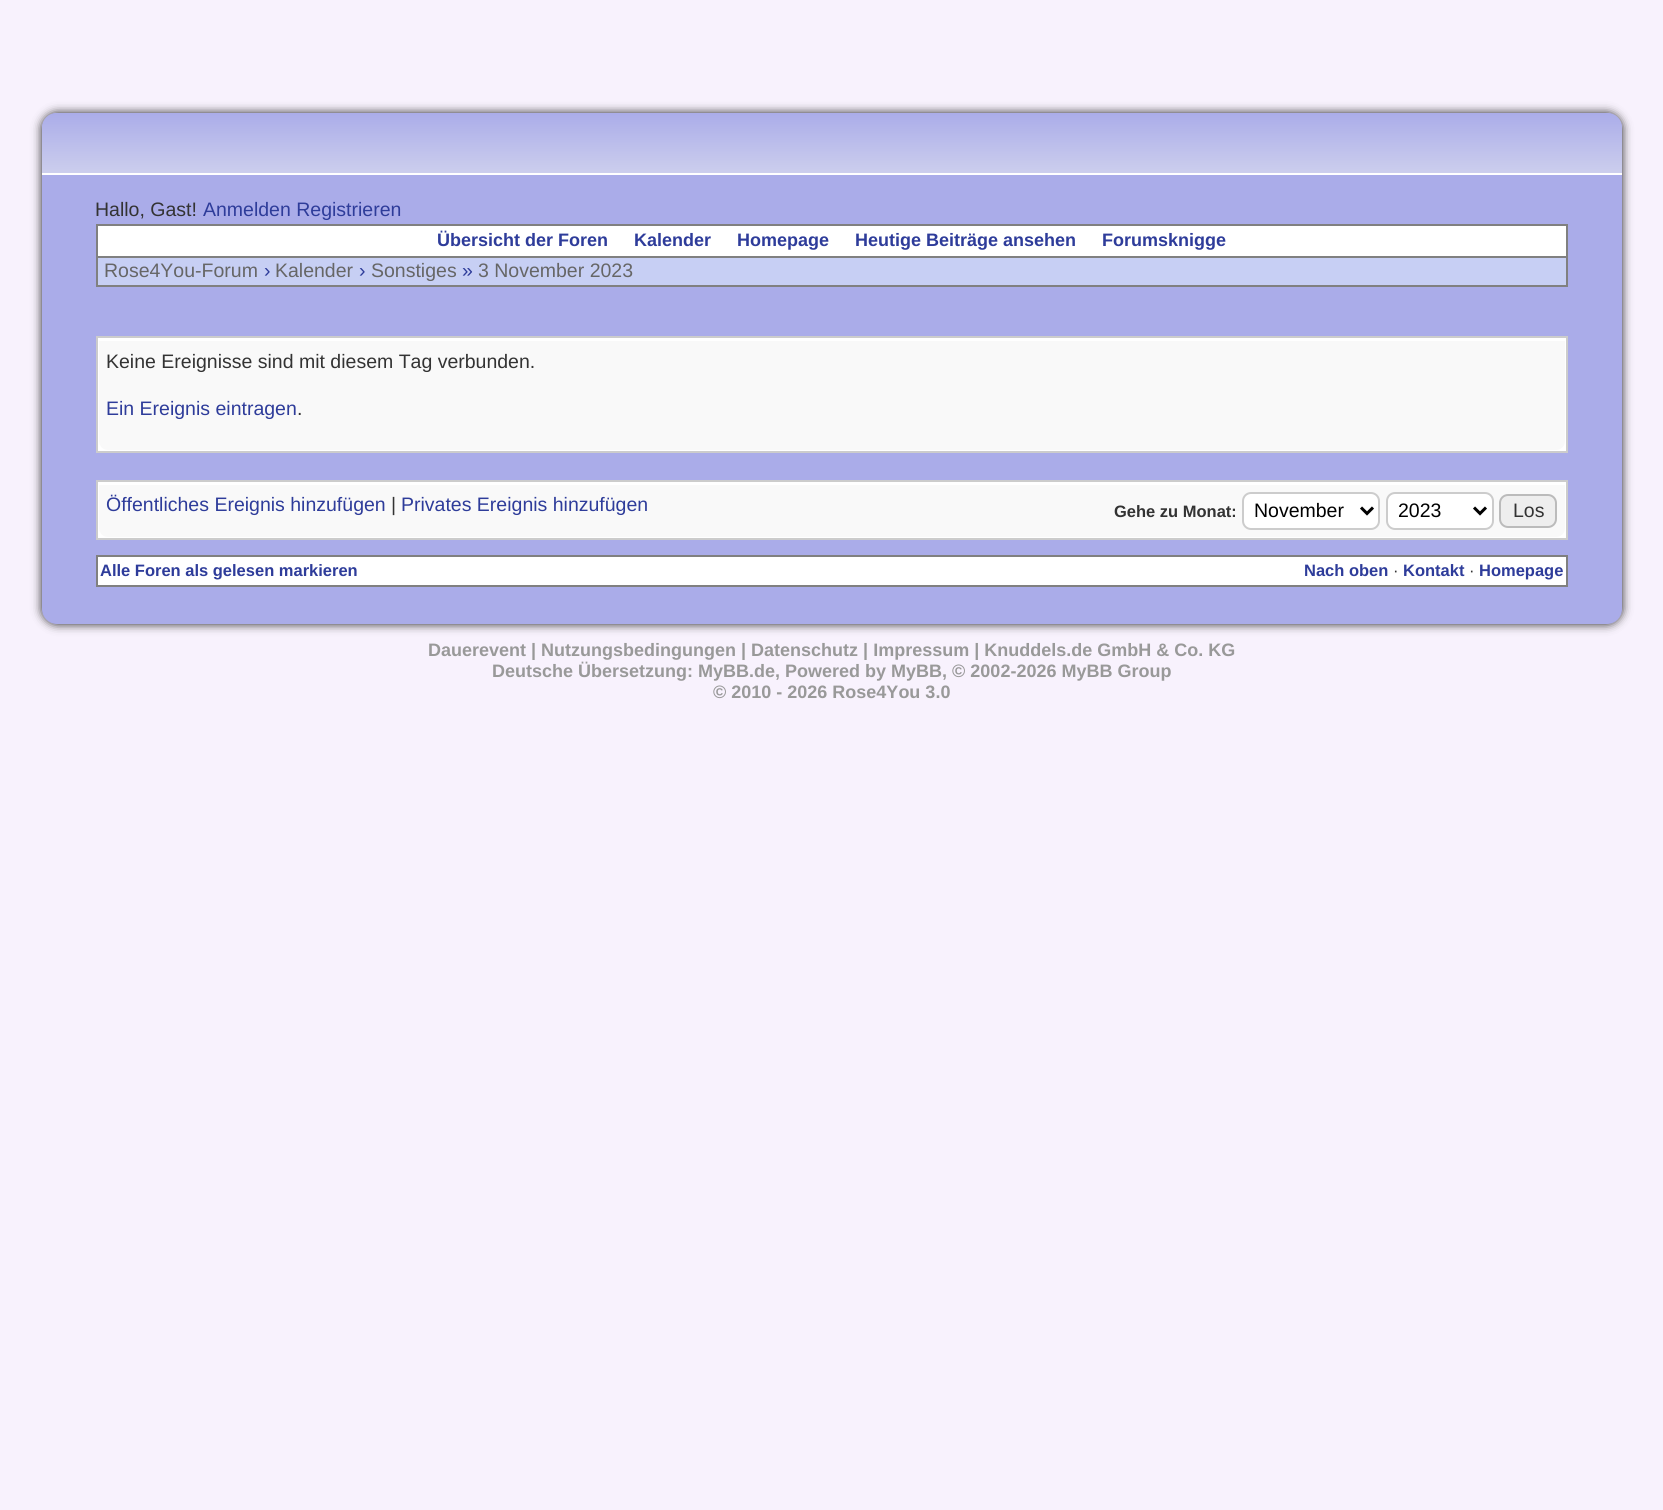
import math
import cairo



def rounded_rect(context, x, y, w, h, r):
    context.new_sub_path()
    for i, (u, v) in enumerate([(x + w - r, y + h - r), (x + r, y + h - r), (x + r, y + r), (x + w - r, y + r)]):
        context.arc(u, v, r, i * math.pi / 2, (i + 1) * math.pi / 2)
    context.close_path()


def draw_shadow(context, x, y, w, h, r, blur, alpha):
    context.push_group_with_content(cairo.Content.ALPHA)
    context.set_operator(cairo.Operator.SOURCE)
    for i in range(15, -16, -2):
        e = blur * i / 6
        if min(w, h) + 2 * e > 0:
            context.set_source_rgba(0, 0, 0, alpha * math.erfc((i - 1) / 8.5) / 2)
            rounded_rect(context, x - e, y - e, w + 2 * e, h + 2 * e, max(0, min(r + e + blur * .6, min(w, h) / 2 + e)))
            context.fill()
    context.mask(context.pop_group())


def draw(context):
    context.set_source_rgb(248 / 255, 242 / 255, 253 / 255)
    context.paint()
    context.set_source_rgb(30 / 255, 30 / 255, 30 / 255)
    draw_shadow(context, 42, 113, 1580, 511, 15, 5, 1)
    context.set_source_rgb(170 / 255, 172 / 255, 233 / 255)
    rounded_rect(context, 42, 113, 1580, 511, 15)
    context.fill()
    gradient = cairo.LinearGradient(832, 112, 832, 173)
    gradient.add_color_stop_rgba(0, 170 / 255, 172 / 255, 233 / 255, 1)
    gradient.add_color_stop_rgba(1, 204 / 255, 206 / 255, 237 / 255, 1)
    context.set_source(gradient)
    context.new_path()
    context.move_to(57, 113)
    context.line_to(1607, 113)
    context.curve_to(1615.5, 113, 1622, 119.5, 1622, 128)
    context.line_to(1622, 173)
    context.line_to(42, 173)
    context.line_to(42, 128)
    context.curve_to(42, 119.5, 48.5, 113, 57, 113)
    context.close_path()
    context.fill()
    context.set_source_rgb(1, 1, 1)
    context.rectangle(42, 173, 1580, 2)
    context.fill()
    context.rectangle(97, 225, 1470, 32)
    context.fill_preserve()
    context.set_source_rgb(128 / 255, 128 / 255, 128 / 255)
    context.stroke()
    context.set_source_rgb(199 / 255, 207 / 255, 244 / 255)
    context.rectangle(98, 258, 1468, 27)
    context.fill()
    context.set_source_rgb(128 / 255, 128 / 255, 128 / 255)
    context.rectangle(1566, 258, 2, 29)
    context.fill()
    context.rectangle(96, 285, 1472, 2)
    context.fill()
    context.rectangle(96, 258, 2, 29)
    context.fill()
    context.set_source_rgb(1, 1, 1)
    context.rectangle(97, 337, 1470, 115)
    context.fill_preserve()
    context.set_source_rgb(204 / 255, 204 / 255, 204 / 255)
    context.stroke()
    context.set_source_rgb(249 / 255, 249 / 255, 249 / 255)
    context.new_path()
    context.move_to(99, 339)
    context.line_to(1565, 339)
    context.line_to(1565, 441)
    context.curve_to(1565, 446, 1561, 450, 1556, 450)
    context.line_to(108, 450)
    context.curve_to(103, 450, 99, 446, 99, 441)
    context.close_path()
    context.fill()
    context.set_source_rgb(1, 1, 1)
    context.rectangle(99, 339, 1466, 2)
    context.fill()
    context.rectangle(97, 481, 1470, 58)
    context.fill_preserve()
    context.set_source_rgb(204 / 255, 204 / 255, 204 / 255)
    context.stroke()
    context.set_source_rgb(249 / 255, 249 / 255, 249 / 255)
    context.new_path()
    context.move_to(99, 483)
    context.line_to(1565, 483)
    context.line_to(1565, 528)
    context.curve_to(1565, 533, 1561, 537, 1556, 537)
    context.line_to(108, 537)
    context.curve_to(103, 537, 99, 533, 99, 528)
    context.close_path()
    context.fill()
    context.set_source_rgb(1, 1, 1)
    context.rectangle(99, 483, 1466, 2)
    context.fill()
    rounded_rect(context, 1243, 493, 136, 36, 8)
    context.fill_preserve()
    context.set_source_rgb(204 / 255, 204 / 255, 204 / 255)
    context.stroke()
    context.new_path()
    context.move_to(1361, 507.5)
    context.line_to(1367, 513.5)
    context.line_to(1373, 507.5)
    context.set_source_rgb(0, 0, 0)
    context.set_line_width(3)
    context.stroke()
    context.set_source_rgb(1, 1, 1)
    rounded_rect(context, 1387, 493, 106, 36, 8)
    context.fill_preserve()
    context.set_source_rgb(204 / 255, 204 / 255, 204 / 255)
    context.set_line_width(2)
    context.stroke()
    context.new_path()
    context.move_to(1474, 507.5)
    context.line_to(1480, 513.5)
    context.line_to(1486, 507.5)
    context.set_source_rgb(0, 0, 0)
    context.set_line_width(3)
    context.stroke()
    context.set_source_rgb(238 / 255, 238 / 255, 238 / 255)
    rounded_rect(context, 1500, 495, 56, 32, 8)
    context.fill_preserve()
    context.set_source_rgb(187 / 255, 187 / 255, 187 / 255)
    context.set_line_width(2)
    context.stroke()
    context.set_source_rgb(1, 1, 1)
    context.rectangle(97, 556, 1470, 30)
    context.fill_preserve()
    context.set_source_rgb(128 / 255, 128 / 255, 128 / 255)
    context.stroke()
    context.select_font_face("Liberation Sans")
    context.set_font_size(19.5)
    context.set_source_rgb(51 / 255, 51 / 255, 51 / 255)
    context.move_to(95, 216)
    context.show_text("Hallo, Gast!")
    context.set_source_rgb(46 / 255, 60 / 255, 154 / 255)
    context.move_to(203, 216)
    context.show_text("Anmelden Registrieren")
    context.select_font_face("Liberation Sans", cairo.FontSlant.NORMAL, cairo.FontWeight.BOLD)
    context.set_font_size(18)
    context.move_to(437, 246)
    context.show_text("Übersicht der Foren")
    context.move_to(634, 246)
    context.show_text("Kalender")
    context.move_to(737, 246)
    context.show_text("Homepage")
    context.move_to(855, 246)
    context.show_text("Heutige Beiträge ansehen")
    context.move_to(1102, 246)
    context.show_text("Forumsknigge")
    context.select_font_face("Liberation Sans")
    context.set_font_size(19.5)
    context.set_source_rgb(102 / 255, 102 / 255, 102 / 255)
    context.move_to(104, 277)
    context.show_text("Rose4You-Forum")
    context.set_source_rgb(46 / 255, 60 / 255, 154 / 255)
    context.move_to(264, 277)
    context.show_text("›")
    context.set_source_rgb(102 / 255, 102 / 255, 102 / 255)
    context.move_to(275, 277)
    context.show_text("Kalender")
    context.set_source_rgb(46 / 255, 60 / 255, 154 / 255)
    context.move_to(359, 277)
    context.show_text("›")
    context.set_source_rgb(102 / 255, 102 / 255, 102 / 255)
    context.move_to(371, 277)
    context.show_text("Sonstiges")
    context.set_source_rgb(46 / 255, 60 / 255, 154 / 255)
    context.move_to(462, 277)
    context.show_text("»")
    context.set_source_rgb(102 / 255, 102 / 255, 102 / 255)
    context.move_to(478, 277)
    context.show_text("3 November 2023")
    context.set_source_rgb(51 / 255, 51 / 255, 51 / 255)
    context.move_to(106, 368)
    context.show_text("Keine Ereignisse sind mit diesem Tag verbunden.")
    context.set_source_rgb(46 / 255, 60 / 255, 154 / 255)
    context.move_to(106, 415)
    context.show_text("Ein Ereignis eintragen")
    context.set_source_rgb(51 / 255, 51 / 255, 51 / 255)
    context.move_to(297, 415)
    context.show_text(".")
    context.set_source_rgb(46 / 255, 60 / 255, 154 / 255)
    context.move_to(106, 511)
    context.show_text("Öffentliches Ereignis hinzufügen")
    context.set_source_rgb(51 / 255, 51 / 255, 51 / 255)
    context.move_to(391, 511)
    context.show_text("|")
    context.set_source_rgb(46 / 255, 60 / 255, 154 / 255)
    context.move_to(401, 511)
    context.show_text("Privates Ereignis hinzufügen")
    context.select_font_face("Liberation Sans", cairo.FontSlant.NORMAL, cairo.FontWeight.BOLD)
    context.set_font_size(16.5)
    context.set_source_rgb(51 / 255, 51 / 255, 51 / 255)
    context.move_to(1114, 517)
    context.show_text("Gehe zu Monat:")
    context.select_font_face("Liberation Sans")
    context.set_font_size(19.5)
    context.set_source_rgb(0, 0, 0)
    context.move_to(1254, 517)
    context.show_text("November")
    context.move_to(1398, 517)
    context.show_text("2023")
    context.set_source_rgb(51 / 255, 51 / 255, 51 / 255)
    context.move_to(1513, 517)
    context.show_text("Los")
    context.select_font_face("Liberation Sans", cairo.FontSlant.NORMAL, cairo.FontWeight.BOLD)
    context.set_font_size(16.5)
    context.set_source_rgb(46 / 255, 60 / 255, 154 / 255)
    context.move_to(100, 576)
    context.show_text("Alle Foren als gelesen markieren")
    context.move_to(1304, 576)
    context.show_text("Nach oben")
    context.select_font_face("Liberation Sans")
    context.set_source_rgb(51 / 255, 51 / 255, 51 / 255)
    context.move_to(1393, 576)
    context.show_text("·")
    context.select_font_face("Liberation Sans", cairo.FontSlant.NORMAL, cairo.FontWeight.BOLD)
    context.set_source_rgb(46 / 255, 60 / 255, 154 / 255)
    context.move_to(1403, 576)
    context.show_text("Kontakt")
    context.select_font_face("Liberation Sans")
    context.set_source_rgb(51 / 255, 51 / 255, 51 / 255)
    context.move_to(1469, 576)
    context.show_text("·")
    context.select_font_face("Liberation Sans", cairo.FontSlant.NORMAL, cairo.FontWeight.BOLD)
    context.set_source_rgb(46 / 255, 60 / 255, 154 / 255)
    context.move_to(1479, 576)
    context.show_text("Homepage")
    context.set_font_size(18)
    context.set_source_rgb(153 / 255, 153 / 255, 153 / 255)
    context.move_to(428, 656)
    context.show_text("Dauerevent | Nutzungsbedingungen | Datenschutz | Impressum | Knuddels.de GmbH & Co. KG")
    context.move_to(492, 677)
    context.show_text("Deutsche Übersetzung: MyBB.de, Powered by MyBB, © 2002-2026 MyBB Group")
    context.move_to(713, 698)
    context.show_text("© 2010 - 2026 Rose4You 3.0")


surface = cairo.ImageSurface(cairo.Format.RGB24, 1663, 1510)
context = cairo.Context(surface)
options = cairo.FontOptions()
options.set_hint_metrics(cairo.HintMetrics.OFF)
options.set_hint_style(cairo.HintStyle.NONE)
context.set_font_options(options)
context.set_miter_limit(4)
draw(context)
surface.write_to_png("out.png")
